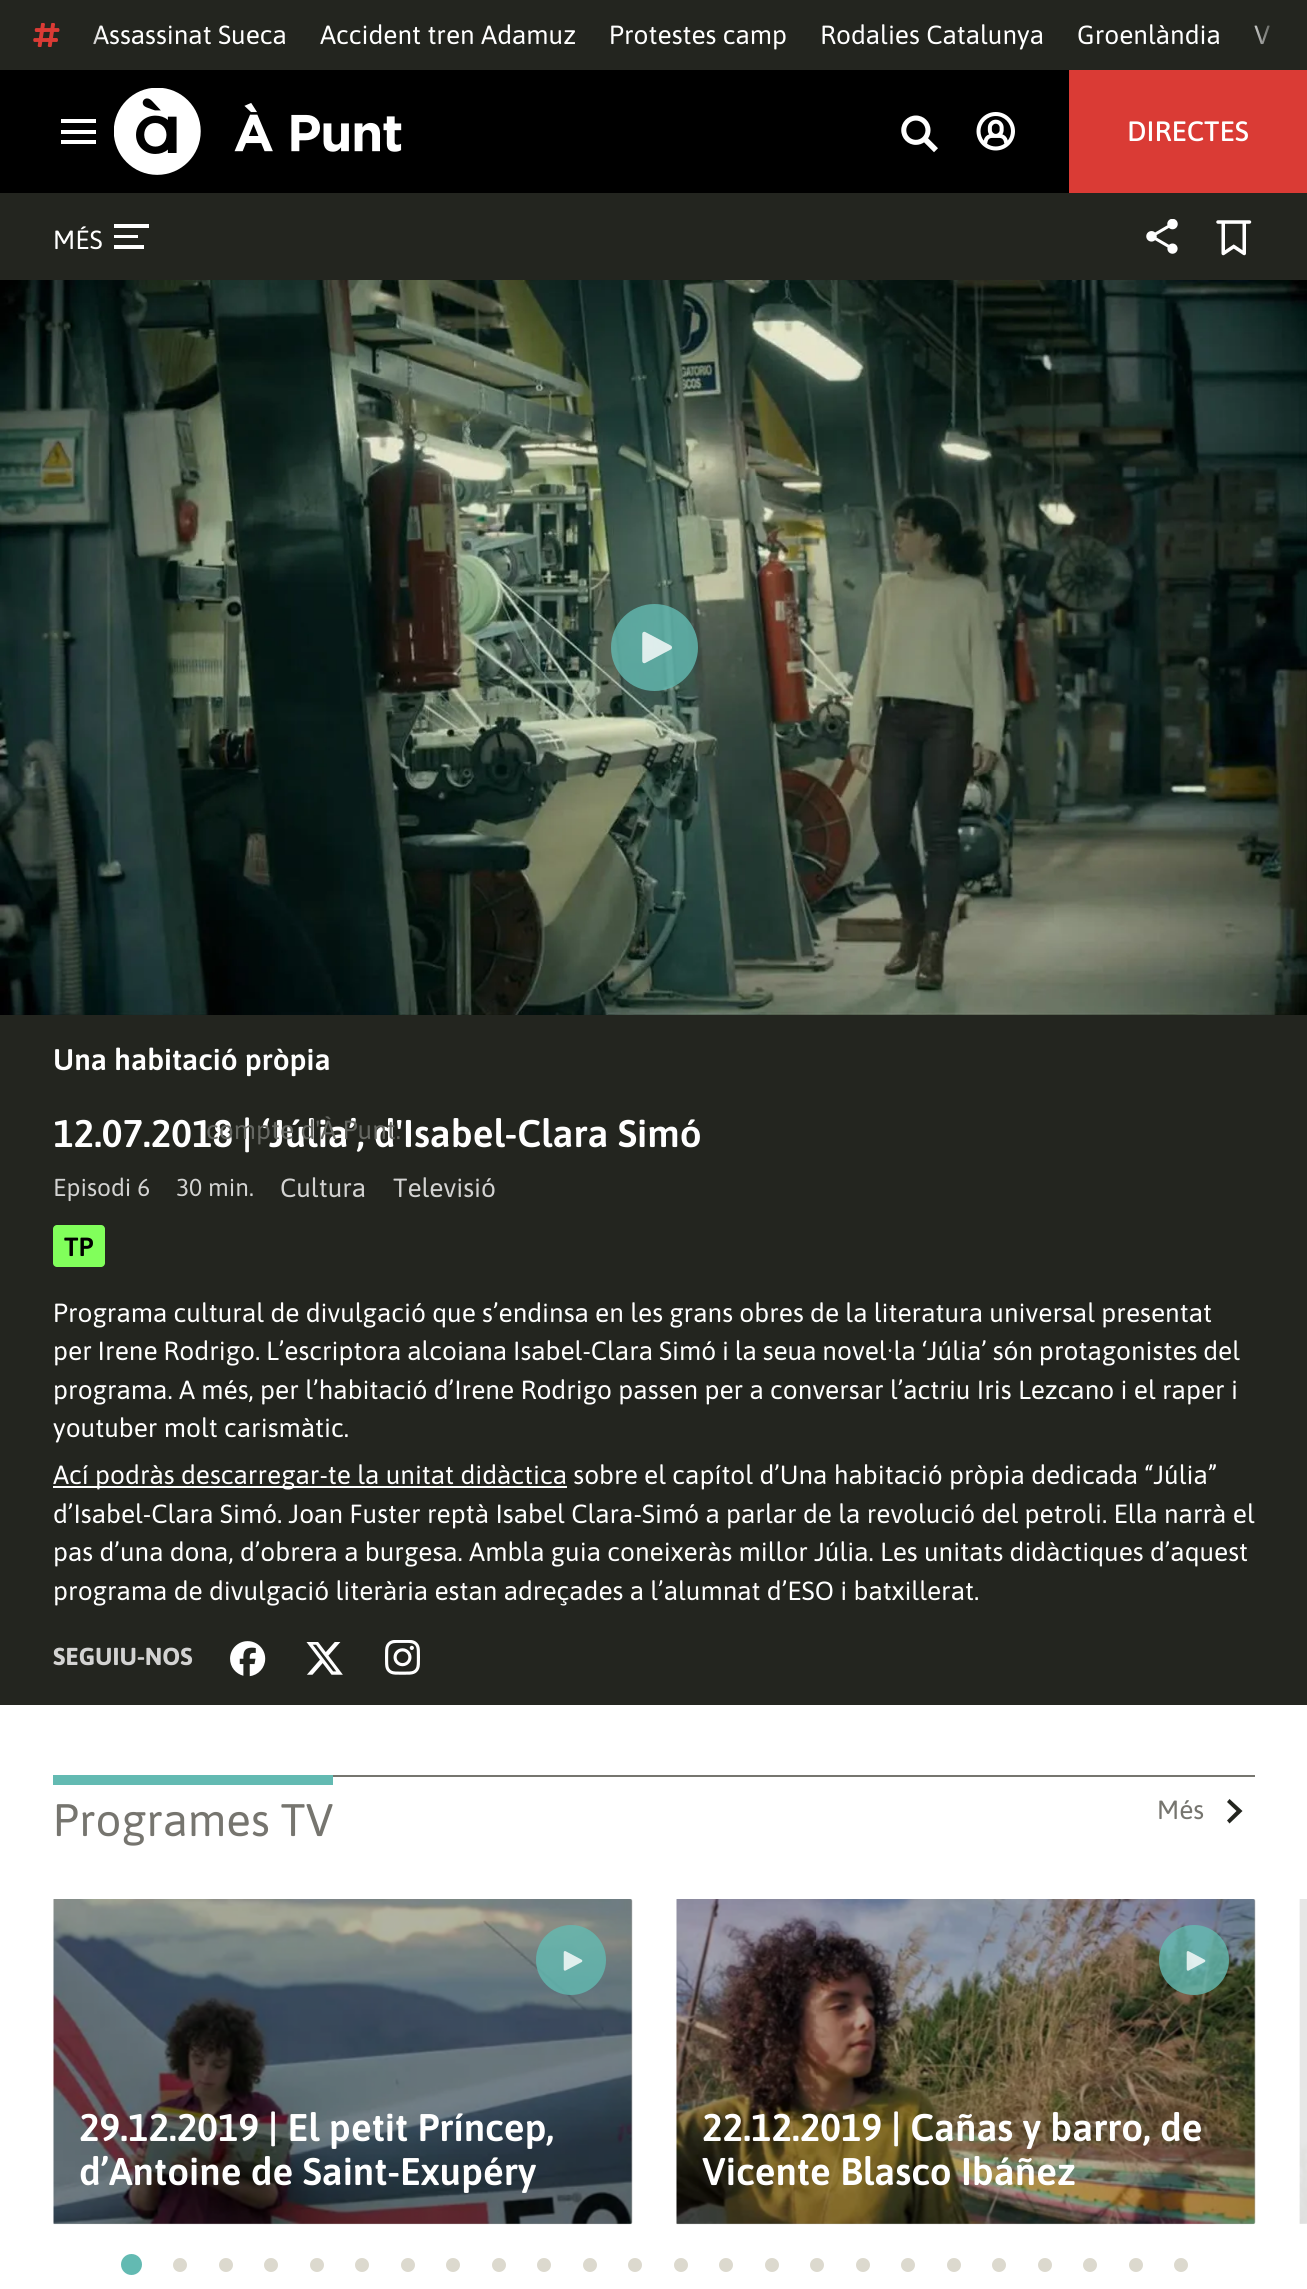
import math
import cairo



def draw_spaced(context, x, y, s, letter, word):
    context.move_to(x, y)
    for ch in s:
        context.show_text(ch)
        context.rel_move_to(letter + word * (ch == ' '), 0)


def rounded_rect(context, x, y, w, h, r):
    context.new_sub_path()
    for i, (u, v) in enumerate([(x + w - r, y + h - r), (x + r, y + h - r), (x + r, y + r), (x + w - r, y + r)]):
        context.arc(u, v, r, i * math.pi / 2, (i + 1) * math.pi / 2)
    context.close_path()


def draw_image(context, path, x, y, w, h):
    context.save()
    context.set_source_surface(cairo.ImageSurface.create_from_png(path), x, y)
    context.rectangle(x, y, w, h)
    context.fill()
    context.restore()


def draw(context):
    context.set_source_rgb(1, 1, 1)
    context.paint()
    context.set_source_rgb(0, 0, 0)
    context.rectangle(0, 70, 1069, 123)
    context.fill()
    context.set_source_rgb(35 / 255, 37 / 255, 31 / 255)
    context.rectangle(0, 0, 1307, 70)
    context.fill()
    draw_image(context, "images/1.png", 33, 23, 27, 24)
    context.set_source_rgb(1, 1, 1)
    context.rectangle(61, 119, 35, 4)
    context.fill()
    context.rectangle(61, 130, 35, 4)
    context.fill()
    context.rectangle(61, 140, 35, 4)
    context.fill()
    draw_image(context, "images/2.png", 114, 88, 288, 87)
    draw_image(context, "images/3.png", 901, 115, 37, 38)
    draw_image(context, "images/4.png", 976, 112, 39, 39)
    context.set_source_rgb(218 / 255, 59 / 255, 53 / 255)
    context.rectangle(1069, 70, 238, 123)
    context.fill()
    context.set_source_rgb(35 / 255, 37 / 255, 31 / 255)
    context.rectangle(0, 193, 1307, 1512)
    context.fill()
    context.set_source_rgb(1, 1, 1)
    context.rectangle(114, 224, 35, 4)
    context.fill()
    context.rectangle(114, 235, 24, 3)
    context.fill()
    context.rectangle(114, 245, 30, 4)
    context.fill()
    draw_image(context, "images/5.png", 1146, 219, 32, 35)
    draw_image(context, "images/6.png", 1216, 220, 36, 36)
    draw_image(context, "images/7.png", 0, 280, 1307, 735)
    context.set_source_rgba(99 / 255, 186 / 255, 178 / 255, 0.8)
    context.arc(654.5, 647.5, 43.5, 0, 2 * math.pi)
    context.fill()
    draw_image(context, "images/8.png", 642, 631, 30, 33)
    context.set_source_rgb(129 / 255, 1, 91 / 255)
    rounded_rect(context, 53, 1225, 52, 42, 4)
    context.fill()
    context.set_source_rgb(1, 1, 1)
    context.rectangle(53, 1486, 514, 2)
    context.fill()
    draw_image(context, "images/9.png", 230, 1641, 36, 36)
    draw_image(context, "images/10.png", 306, 1642, 37, 33)
    draw_image(context, "images/11.png", 385, 1640, 35, 35)
    context.set_source_rgb(118 / 255, 117 / 255, 111 / 255)
    context.rectangle(333, 1775, 922, 2)
    context.fill()
    context.set_source_rgb(99 / 255, 186 / 255, 178 / 255)
    context.rectangle(53, 1775, 280, 10)
    context.fill()
    context.set_source_rgb(35 / 255, 37 / 255, 31 / 255)
    context.new_path()
    context.move_to(1227, 1802)
    context.line_to(1236.5, 1811)
    context.line_to(1227, 1820.5)
    context.line_to(1229.5, 1823.5)
    context.line_to(1242.5, 1811)
    context.line_to(1229.5, 1799)
    context.close_path()
    context.fill()
    context.save()
    rounded_rect(context, 53, 1899, 579, 325, 2)
    context.clip()
    context.set_source_rgb(168 / 255, 166 / 255, 162 / 255)
    context.new_path()
    context.move_to(54, 1899)
    context.line_to(630, 1899)
    context.curve_to(631, 1899, 632, 1900, 632, 1901)
    context.line_to(632, 2222)
    context.curve_to(632, 2223, 631, 2224, 630, 2224)
    context.line_to(54, 2224)
    context.close_path()
    context.fill()
    context.restore()
    draw_image(context, "images/12.png", 53, 1899, 580, 326)
    context.set_source_rgba(99 / 255, 186 / 255, 178 / 255, 0.8)
    context.arc(571, 1960, 35, 0, 2 * math.pi)
    context.fill()
    draw_image(context, "images/13.png", 563, 1951, 20, 20)
    context.save()
    rounded_rect(context, 676, 1899, 579, 325, 2)
    context.clip()
    context.set_source_rgb(168 / 255, 166 / 255, 162 / 255)
    context.new_path()
    context.move_to(677, 1899)
    context.line_to(1253, 1899)
    context.curve_to(1254, 1899, 1255, 1900, 1255, 1901)
    context.line_to(1255, 2222)
    context.curve_to(1255, 2223, 1254, 2224, 1253, 2224)
    context.line_to(677, 2224)
    context.close_path()
    context.fill()
    context.restore()
    draw_image(context, "images/14.png", 676, 1899, 580, 326)
    context.arc(1194, 1960, 35, 0, 2 * math.pi)
    context.fill()
    draw_image(context, "images/15.png", 1186, 1951, 20, 20)
    context.set_source_rgb(246 / 255, 246 / 255, 246 / 255)
    context.rectangle(1300, 1899, 7, 325)
    context.fill()
    draw_image(context, "images/16.png", 1299, 1899, 8, 325)
    context.set_source_rgb(99 / 255, 186 / 255, 178 / 255)
    context.arc(131.5, 2264.5, 10.5, 0, 2 * math.pi)
    context.fill()
    context.set_source_rgb(220 / 255, 217 / 255, 206 / 255)
    context.arc(180, 2265, 7, 0, 2 * math.pi)
    context.fill()
    context.arc(226, 2265, 7, 0, 2 * math.pi)
    context.fill()
    context.arc(271, 2265, 7, 0, 2 * math.pi)
    context.fill()
    context.arc(317, 2265, 7, 0, 2 * math.pi)
    context.fill()
    context.arc(362, 2265, 7, 0, 2 * math.pi)
    context.fill()
    context.arc(408, 2265, 7, 0, 2 * math.pi)
    context.fill()
    context.arc(453, 2265, 7, 0, 2 * math.pi)
    context.fill()
    context.arc(499, 2265, 7, 0, 2 * math.pi)
    context.fill()
    context.arc(544, 2265, 7, 0, 2 * math.pi)
    context.fill()
    context.arc(590, 2265, 7, 0, 2 * math.pi)
    context.fill()
    context.arc(635, 2265, 7, 0, 2 * math.pi)
    context.fill()
    context.arc(681, 2265, 7, 0, 2 * math.pi)
    context.fill()
    context.arc(726, 2265, 7, 0, 2 * math.pi)
    context.fill()
    context.arc(772, 2265, 7, 0, 2 * math.pi)
    context.fill()
    context.arc(817, 2265, 7, 0, 2 * math.pi)
    context.fill()
    context.arc(863, 2265, 7, 0, 2 * math.pi)
    context.fill()
    context.arc(908, 2265, 7, 0, 2 * math.pi)
    context.fill()
    context.arc(954, 2265, 7, 0, 2 * math.pi)
    context.fill()
    context.arc(999, 2265, 7, 0, 2 * math.pi)
    context.fill()
    context.arc(1045, 2265, 7, 0, 2 * math.pi)
    context.fill()
    context.arc(1090, 2265, 7, 0, 2 * math.pi)
    context.fill()
    context.arc(1136, 2265, 7, 0, 2 * math.pi)
    context.fill()
    context.arc(1181, 2265, 7, 0, 2 * math.pi)
    context.fill()
    context.select_font_face("Asap")
    context.set_font_size(26.25)
    context.set_source_rgb(1, 1, 1)
    context.move_to(93, 44)
    context.show_text("Assassinat Sueca")
    context.move_to(320, 44)
    context.show_text("Accident tren Adamuz")
    context.move_to(609, 44)
    context.show_text("Protestes camp")
    context.move_to(820, 44)
    context.show_text("Rodalies Catalunya")
    context.move_to(1077, 44)
    context.show_text("Groenlàndia")
    context.move_to(1254, 44)
    context.show_text("V")
    gradient = cairo.LinearGradient(67, 35, 102, 35)
    gradient.add_color_stop_rgba(0, 35 / 255, 37 / 255, 31 / 255, 1)
    gradient.add_color_stop_rgba(1, 35 / 255, 37 / 255, 31 / 255, 0)
    context.set_source(gradient)
    context.rectangle(93, 25, 8, 19)
    context.fill()
    gradient = cairo.LinearGradient(1281, 35, 1246, 35)
    gradient.add_color_stop_rgba(0, 35 / 255, 37 / 255, 31 / 255, 1)
    gradient.add_color_stop_rgba(1, 35 / 255, 37 / 255, 31 / 255, 0)
    context.set_source(gradient)
    context.rectangle(1254, 25, 16, 20)
    context.fill()
    context.select_font_face("Asap Medium")
    context.set_font_size(28)
    context.set_source_rgb(1, 1, 1)
    context.move_to(1127, 141)
    context.show_text("DIRECTES")
    context.select_font_face("Asap")
    context.set_font_size(26.25)
    context.move_to(53, 249)
    context.show_text("MÉS")
    context.select_font_face("Asap SemiBold")
    context.set_font_size(29.75)
    context.move_to(53, 1070)
    context.show_text("Una habitació pròpia")
    context.set_font_size(38.5)
    context.move_to(53, 1147)
    context.show_text("12.07.2018 | ‘Júlia’, d'Isabel-Clara Simó")
    context.select_font_face("Asap")
    context.set_font_size(26.25)
    context.set_source_rgb(102 / 255, 104 / 255, 99 / 255)
    context.move_to(206, 1139)
    context.show_text("compte d'À Punt.")
    context.set_font_size(24.5)
    context.set_source_rgb(211 / 255, 211 / 255, 210 / 255)
    context.move_to(53, 1196)
    context.show_text("Episodi 6")
    context.move_to(176, 1196)
    context.show_text("30 min.")
    context.set_font_size(26.25)
    context.move_to(280, 1197)
    context.show_text("Cultura")
    context.move_to(393, 1197)
    context.show_text("Televisió")
    context.select_font_face("Asap SemiBold")
    context.set_source_rgb(0, 0, 0)
    context.move_to(64, 1256)
    context.show_text("TP")
    context.select_font_face("Asap")
    context.set_source_rgb(1, 1, 1)
    context.move_to(53, 1322)
    context.show_text("Programa cultural de divulgació que s’endinsa en les grans obres de la literatura universal presentat")
    draw_spaced(context, 53, 1360, "per Irene Rodrigo. L’escriptora alcoiana Isabel-Clara Simó i la seua novel·la ‘Júlia’ són protagonistes del", 0, -0.5)
    context.move_to(53, 1399)
    context.show_text("programa. A més, per l’habitació d’Irene Rodrigo passen per a conversar l’actriu Iris Lezcano i el raper i")
    context.move_to(53, 1437)
    context.show_text("youtuber molt carismàtic.")
    context.move_to(53, 1484)
    context.show_text("Ací podràs descarregar-te la unitat didàctica sobre el capítol d’Una habitació pròpia dedicada “Júlia”")
    context.move_to(53, 1523)
    context.show_text("d’Isabel-Clara Simó. Joan Fuster reptà Isabel Clara-Simó a parlar de la revolució del petroli. Ella narrà el")
    context.move_to(53, 1561)
    context.show_text("pas d’una dona, d’obrera a burgesa. Ambla guia coneixeràs millor Júlia. Les unitats didàctiques d’aquest")
    context.move_to(53, 1600)
    context.show_text("programa de divulgació literària estan adreçades a l’alumnat d’ESO i batxillerat.")
    context.select_font_face("Asap", cairo.FontSlant.NORMAL, cairo.FontWeight.BOLD)
    context.set_font_size(24.5)
    context.set_source_rgb(211 / 255, 211 / 255, 210 / 255)
    context.move_to(53, 1665)
    context.show_text("SEGUIU-NOS")
    context.select_font_face("Asap")
    context.set_font_size(45.5)
    context.set_source_rgb(118 / 255, 117 / 255, 111 / 255)
    context.move_to(53, 1836)
    context.show_text("Programes TV")
    context.set_font_size(26.25)
    context.move_to(1157, 1819)
    context.show_text("Més")
    context.select_font_face("Asap SemiBold")
    context.set_font_size(38.5)
    context.set_source_rgb(1, 1, 1)
    context.move_to(79, 2141)
    context.show_text("29.12.2019 | El petit Príncep,")
    context.move_to(79, 2185)
    context.show_text("d’Antoine de Saint-Exupéry")
    context.move_to(702, 2141)
    context.show_text("22.12.2019 | Cañas y barro, de")
    context.move_to(702, 2185)
    context.show_text("Vicente Blasco Ibáñez")


surface = cairo.ImageSurface(cairo.Format.RGB24, 1307, 2289)
context = cairo.Context(surface)
options = cairo.FontOptions()
options.set_hint_metrics(cairo.HintMetrics.OFF)
options.set_hint_style(cairo.HintStyle.NONE)
context.set_font_options(options)
context.set_miter_limit(4)
draw(context)
surface.write_to_png("out.png")
